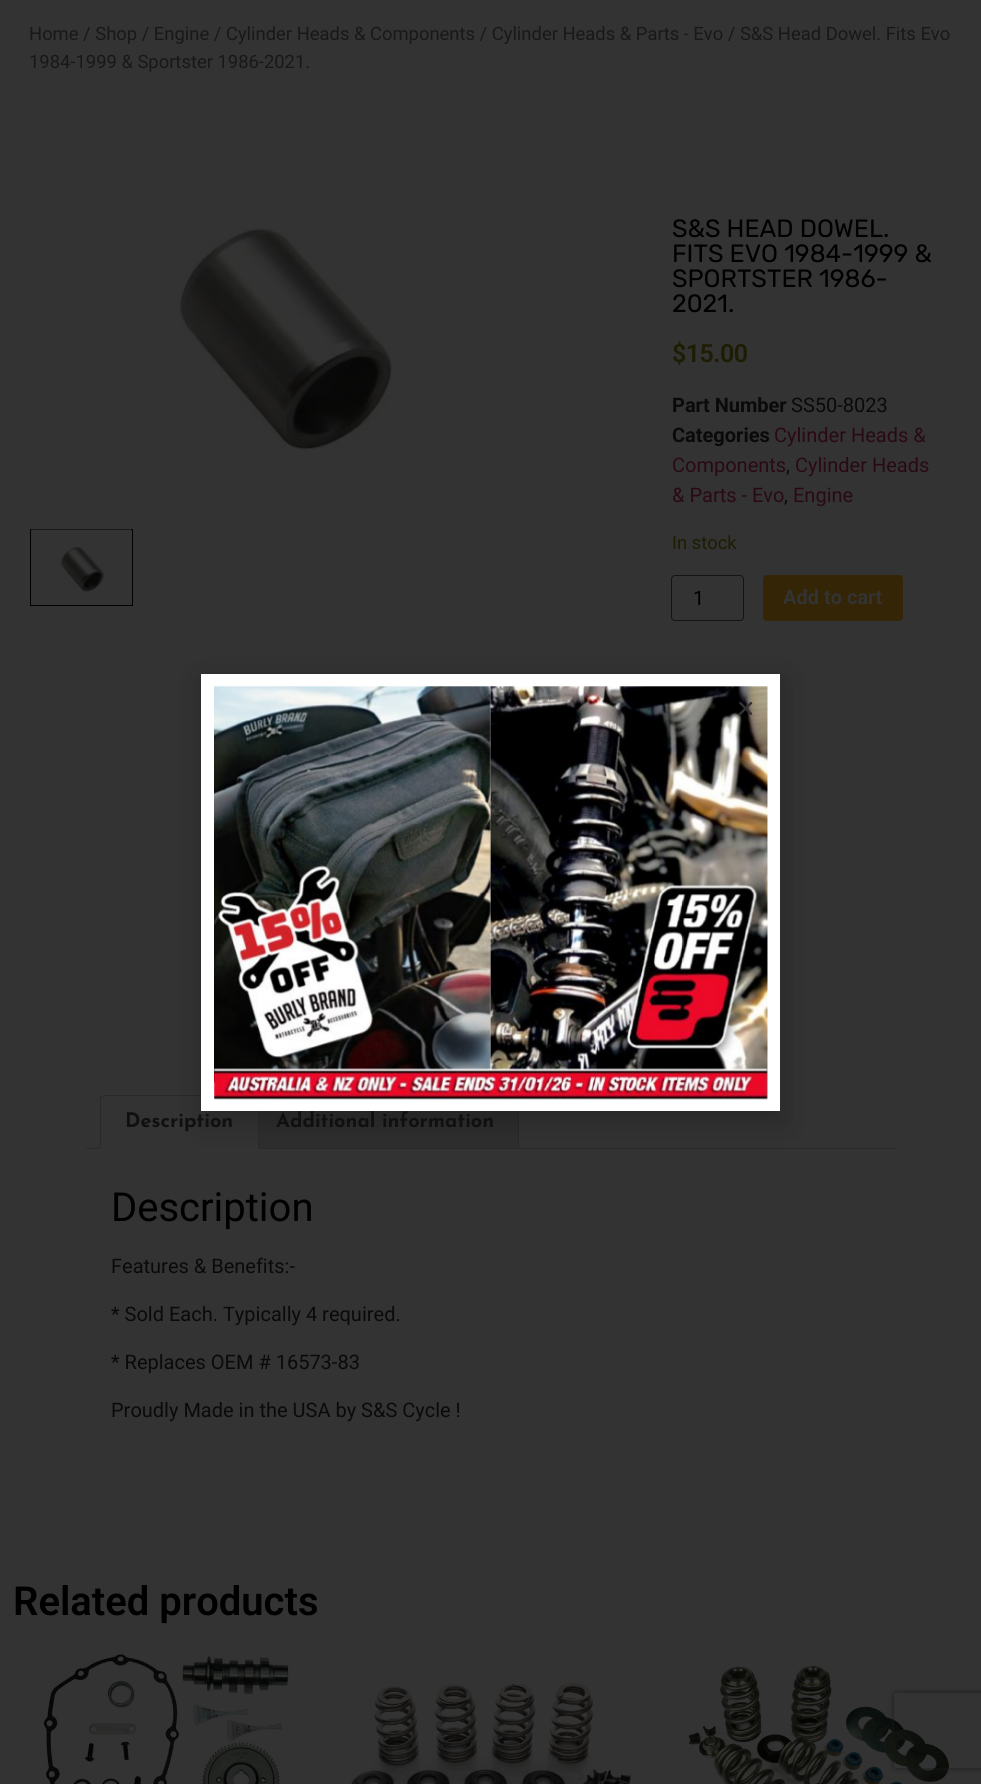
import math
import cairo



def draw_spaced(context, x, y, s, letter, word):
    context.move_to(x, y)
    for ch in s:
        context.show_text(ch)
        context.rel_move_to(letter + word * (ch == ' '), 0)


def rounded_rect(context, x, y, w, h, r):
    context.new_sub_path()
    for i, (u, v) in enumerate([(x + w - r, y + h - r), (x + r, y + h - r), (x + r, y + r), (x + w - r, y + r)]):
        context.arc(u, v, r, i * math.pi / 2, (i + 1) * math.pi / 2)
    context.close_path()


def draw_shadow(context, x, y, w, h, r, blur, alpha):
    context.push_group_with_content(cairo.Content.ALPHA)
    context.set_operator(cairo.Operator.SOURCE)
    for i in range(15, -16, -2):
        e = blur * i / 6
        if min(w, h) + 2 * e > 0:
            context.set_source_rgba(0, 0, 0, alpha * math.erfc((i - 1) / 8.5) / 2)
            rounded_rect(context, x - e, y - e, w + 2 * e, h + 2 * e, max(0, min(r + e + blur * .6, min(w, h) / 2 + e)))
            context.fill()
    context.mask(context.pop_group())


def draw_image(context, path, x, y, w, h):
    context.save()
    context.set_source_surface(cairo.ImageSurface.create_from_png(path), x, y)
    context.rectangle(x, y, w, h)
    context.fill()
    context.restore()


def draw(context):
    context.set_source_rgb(51 / 255, 51 / 255, 51 / 255)
    context.paint()
    draw_image(context, "images/1.png", 180, 227, 217, 223)
    context.rectangle(30.5, 529.5, 102, 76)
    context.set_source_rgb(0, 0, 0)
    context.set_line_width(1)
    context.stroke()
    draw_image(context, "images/2.png", 31, 529, 101, 63)
    rounded_rect(context, 671.5, 575.5, 72, 45, 3.5)
    context.set_source_rgb(20 / 255, 20 / 255, 20 / 255)
    context.stroke()
    context.set_source_rgb(51 / 255, 37 / 255, 5 / 255)
    rounded_rect(context, 763, 575, 140, 46, 4)
    context.fill()
    context.set_source_rgb(47 / 255, 46 / 255, 47 / 255)
    context.rectangle(251, 1111, 267, 37)
    context.fill()
    context.set_source_rgb(42 / 255, 41 / 255, 42 / 255)
    context.rectangle(86, 1148, 809, 1)
    context.fill()
    context.rectangle(250.5, 1095.5, 268, 53)
    context.set_source_rgb(41 / 255, 40 / 255, 43 / 255)
    context.stroke()
    context.set_source_rgba(51 / 255, 51 / 255, 51 / 255, 0.9)
    context.new_path()
    context.move_to(105, 1095)
    context.line_to(254, 1095)
    context.curve_to(257, 1095, 259, 1097, 259, 1100)
    context.line_to(259, 1149)
    context.line_to(100, 1149)
    context.line_to(100, 1100)
    context.curve_to(100, 1097, 102, 1095, 105, 1095)
    context.close_path()
    context.fill()
    context.set_source_rgb(41 / 255, 40 / 255, 43 / 255)
    context.new_path()
    context.move_to(105, 1095)
    context.curve_to(104, 1095, 102, 1096, 101, 1096)
    context.line_to(102, 1097)
    context.line_to(105, 1096)
    context.line_to(254, 1096)
    context.line_to(257, 1097)
    context.line_to(257, 1096)
    context.curve_to(257, 1095, 255, 1095, 254, 1095)
    context.close_path()
    context.fill()
    context.new_path()
    context.move_to(257, 1096)
    context.line_to(259, 1098)
    context.line_to(259, 1149)
    context.line_to(258, 1148)
    context.line_to(258, 1099)
    context.line_to(257, 1097)
    context.close_path()
    context.fill()
    context.set_source_rgba(51 / 255, 51 / 255, 51 / 255, 0.9)
    context.new_path()
    context.move_to(259, 1149)
    context.line_to(258, 1148)
    context.line_to(101, 1148)
    context.line_to(100, 1149)
    context.close_path()
    context.fill()
    context.set_source_rgb(41 / 255, 40 / 255, 43 / 255)
    context.new_path()
    context.move_to(100, 1149)
    context.line_to(101, 1148)
    context.line_to(101, 1099)
    context.line_to(102, 1097)
    context.line_to(101, 1096)
    context.curve_to(100, 1097, 100, 1098, 100, 1100)
    context.close_path()
    context.fill()
    draw_image(context, "images/3.png", 42, 1653, 247, 131)
    draw_image(context, "images/4.png", 350, 1683, 281, 101)
    draw_image(context, "images/5.png", 688, 1665, 261, 119)
    context.set_source_rgb(0, 0, 0)
    draw_shadow(context, 200, 680, 586, 445, 0, 14.5, 0.2)
    context.set_source_rgb(1, 1, 1)
    context.rectangle(201, 674, 579, 437)
    context.fill()
    draw_image(context, "images/6.png", 214, 686, 554, 414)
    draw_image(context, "images/7.png", 739, 701, 14, 14)
    context.save()
    context.set_fill_rule(cairo.FillRule.EVEN_ODD)
    context.new_path()
    context.move_to(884, 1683)
    context.line_to(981, 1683)
    context.line_to(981, 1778)
    context.line_to(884, 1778)
    context.close_path()
    context.move_to(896.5, 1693)
    context.line_to(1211.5, 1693)
    context.curve_to(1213, 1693, 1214, 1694, 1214, 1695.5)
    context.line_to(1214, 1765.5)
    context.curve_to(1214, 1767, 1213, 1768, 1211.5, 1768)
    context.line_to(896.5, 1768)
    context.curve_to(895, 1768, 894, 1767, 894, 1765.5)
    context.line_to(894, 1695.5)
    context.curve_to(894, 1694, 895, 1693, 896.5, 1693)
    context.close_path()
    context.clip()
    context.set_source_rgb(26 / 255, 26 / 255, 26 / 255)
    draw_shadow(context, 894, 1693, 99, 75, 2.5, 3, 1)
    context.restore()
    context.select_font_face("Roboto")
    context.set_font_size(18.4)
    context.set_source_rgb(24 / 255, 24 / 255, 24 / 255)
    context.move_to(29, 40)
    context.show_text("Home / Shop / Engine / Cylinder Heads & Components / Cylinder Heads & Parts - Evo / S&S Head Dowel. Fits Evo")
    context.move_to(29, 68)
    context.show_text("1984-1999 & Sportster 1986-2021.")
    context.select_font_face("Rubik")
    context.set_font_size(25)
    context.set_source_rgb(0, 0, 0)
    context.move_to(672, 237)
    context.show_text("S&S HEAD DOWEL.")
    context.move_to(672, 262)
    context.show_text("FITS EVO 1984-1999 &")
    context.move_to(672, 287)
    context.show_text("SPORTSTER 1986-")
    context.move_to(672, 312)
    context.show_text("2021.")
    context.select_font_face("Roboto SemiBold")
    context.set_source_rgb(30 / 255, 28 / 255, 2 / 255)
    draw_spaced(context, 672, 362, "$15.00", -0.5, 0)
    context.select_font_face("Roboto", cairo.FontSlant.NORMAL, cairo.FontWeight.BOLD)
    context.set_font_size(20)
    context.set_source_rgb(10 / 255, 10 / 255, 10 / 255)
    context.move_to(672, 412)
    context.show_text("Part Number")
    context.select_font_face("Roboto")
    context.move_to(791, 412)
    context.show_text("SS50-8023")
    context.select_font_face("Roboto", cairo.FontSlant.NORMAL, cairo.FontWeight.BOLD)
    context.move_to(672, 442)
    context.show_text("Categories")
    context.select_font_face("Roboto")
    context.set_source_rgb(41 / 255, 10 / 255, 20 / 255)
    context.move_to(774, 442)
    context.show_text("Cylinder Heads &")
    context.move_to(672, 472)
    context.show_text("Components")
    context.set_source_rgb(10 / 255, 10 / 255, 10 / 255)
    context.move_to(786, 472)
    context.show_text(",")
    context.set_source_rgb(41 / 255, 10 / 255, 20 / 255)
    context.move_to(795, 472)
    context.show_text("Cylinder Heads")
    context.move_to(672, 502)
    context.show_text("& Parts - Evo")
    context.set_source_rgb(10 / 255, 10 / 255, 10 / 255)
    context.move_to(784, 502)
    context.show_text(",")
    context.set_source_rgb(41 / 255, 10 / 255, 20 / 255)
    context.move_to(793, 502)
    context.show_text("Engine")
    context.set_font_size(18.4)
    context.set_source_rgb(30 / 255, 28 / 255, 2 / 255)
    context.move_to(672, 549)
    context.show_text("In stock")
    context.set_font_size(20)
    context.set_source_rgb(0, 0, 0)
    context.move_to(693, 605)
    context.show_text("1")
    context.select_font_face("Roboto", cairo.FontSlant.NORMAL, cairo.FontWeight.BOLD)
    context.set_source_rgb(51 / 255, 51 / 255, 51 / 255)
    context.move_to(783, 604)
    context.show_text("Add to cart")
    context.select_font_face("Josefin Sans", cairo.FontSlant.NORMAL, cairo.FontWeight.BOLD)
    context.set_source_rgb(16 / 255, 16 / 255, 16 / 255)
    context.move_to(125, 1127)
    context.show_text("Description")
    context.move_to(276, 1127)
    context.show_text("Additional information")
    context.select_font_face("Roboto")
    context.set_font_size(40)
    context.set_source_rgb(0, 0, 0)
    context.move_to(111, 1221)
    context.show_text("Description")
    context.set_font_size(20)
    context.set_source_rgb(10 / 255, 10 / 255, 10 / 255)
    context.move_to(111, 1273)
    context.show_text("Features & Benefits:-")
    context.move_to(111, 1321)
    context.show_text("* Sold Each. Typically 4 required.")
    context.move_to(111, 1369)
    context.show_text("* Replaces OEM # 16573-83")
    context.move_to(111, 1417)
    context.show_text("Proudly Made in the USA by S&S Cycle !")
    context.select_font_face("Roboto SemiBold")
    context.set_font_size(40)
    context.set_source_rgb(0, 0, 0)
    context.move_to(13, 1615)
    context.show_text("Related products")


surface = cairo.ImageSurface(cairo.Format.RGB24, 981, 1784)
context = cairo.Context(surface)
options = cairo.FontOptions()
options.set_hint_metrics(cairo.HintMetrics.OFF)
options.set_hint_style(cairo.HintStyle.NONE)
context.set_font_options(options)
context.set_miter_limit(4)
draw(context)
surface.write_to_png("out.png")
